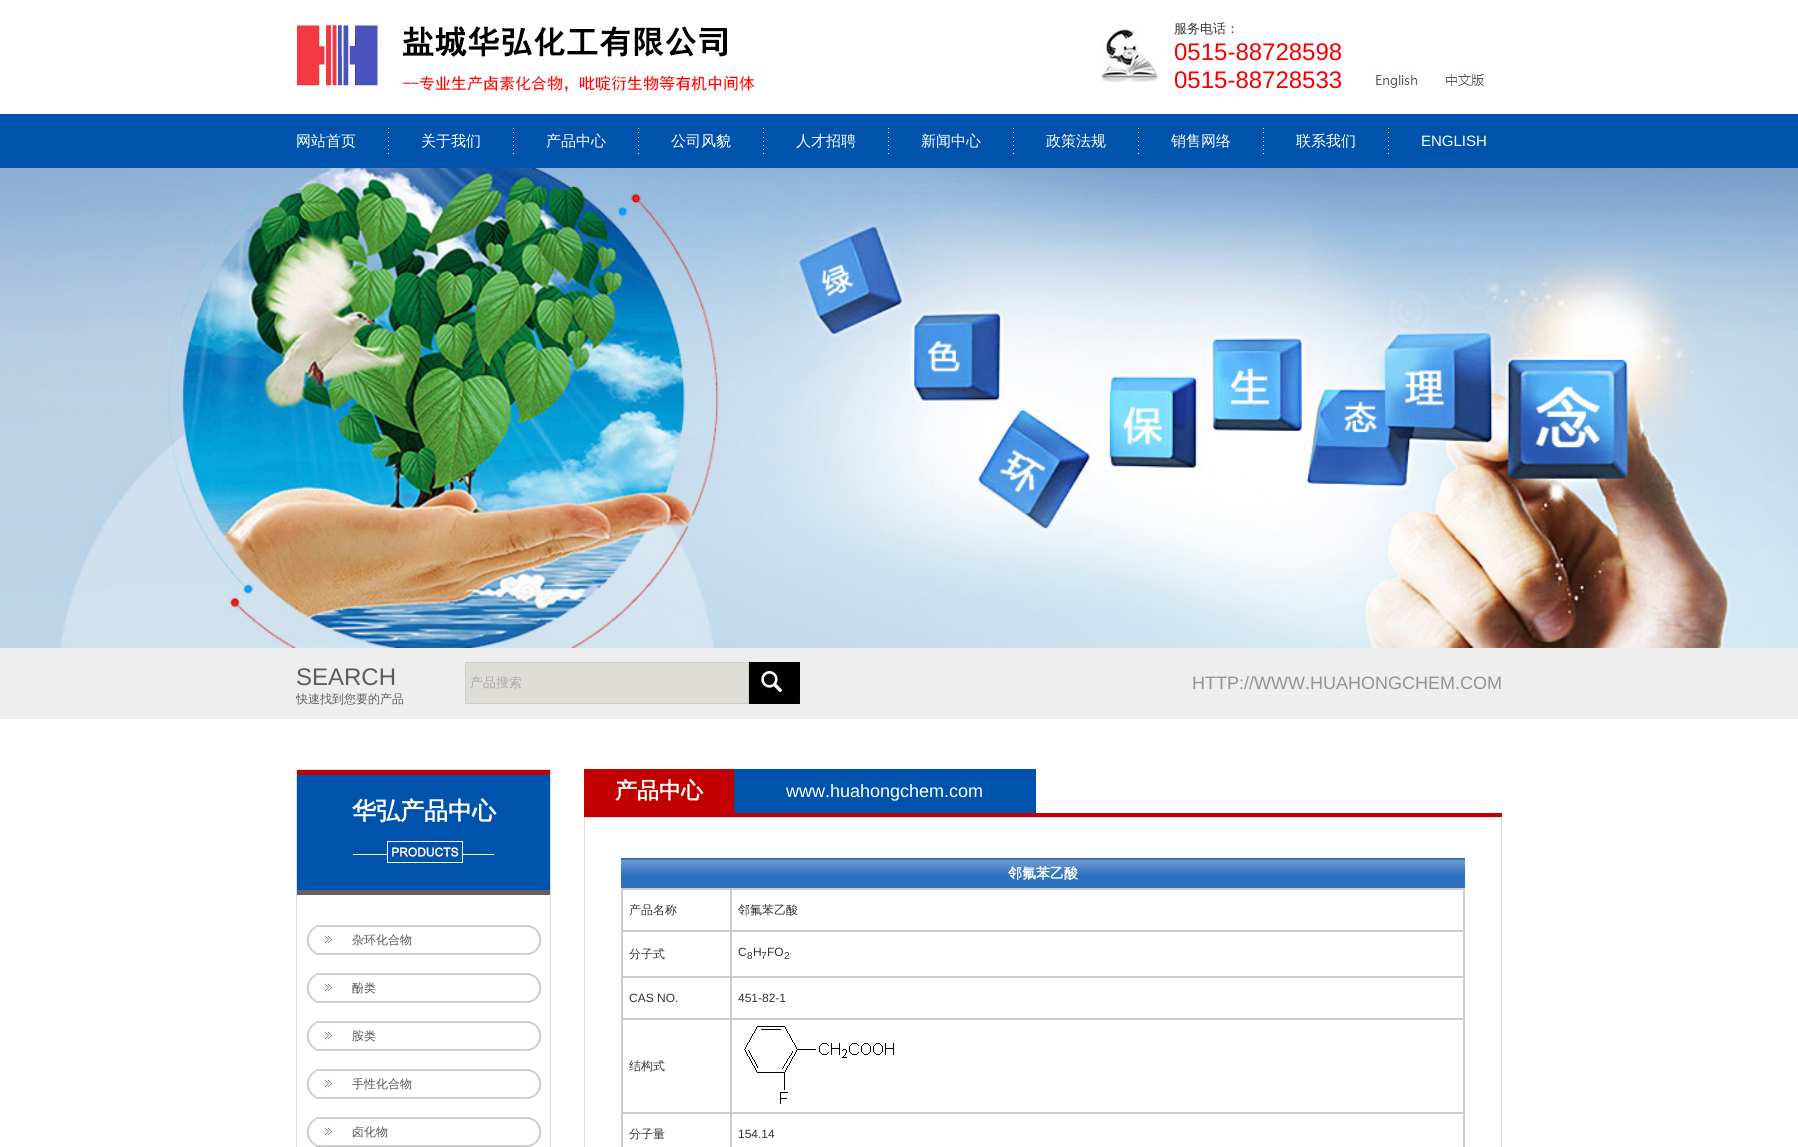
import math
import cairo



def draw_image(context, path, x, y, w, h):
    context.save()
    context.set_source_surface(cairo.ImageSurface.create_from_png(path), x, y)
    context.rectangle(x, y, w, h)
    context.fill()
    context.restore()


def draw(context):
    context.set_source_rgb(1, 1, 1)
    context.paint()
    draw_image(context, "images/1.png", 296, 24, 461, 70)
    draw_image(context, "images/2.png", 1100, 29, 58, 54)
    draw_image(context, "images/3.png", 1369, 69, 49, 20)
    draw_image(context, "images/4.png", 1442, 69, 43, 20)
    context.set_source_rgb(0, 83 / 255, 172 / 255)
    context.rectangle(0, 114, 1798, 54)
    context.fill()
    draw_image(context, "images/5.png", 388, 128, 1, 26)
    draw_image(context, "images/5.png", 513, 128, 1, 26)
    draw_image(context, "images/5.png", 638, 128, 1, 26)
    draw_image(context, "images/5.png", 763, 128, 1, 26)
    draw_image(context, "images/5.png", 888, 128, 1, 26)
    draw_image(context, "images/5.png", 1013, 128, 1, 26)
    draw_image(context, "images/5.png", 1138, 128, 1, 26)
    draw_image(context, "images/5.png", 1263, 128, 1, 26)
    draw_image(context, "images/5.png", 1388, 128, 1, 26)
    draw_image(context, "images/6.png", 0, 168, 1798, 480)
    context.set_source_rgb(238 / 255, 238 / 255, 238 / 255)
    context.rectangle(0, 648, 1798, 71)
    context.fill()
    context.set_source_rgb(223 / 255, 221 / 255, 216 / 255)
    context.rectangle(465.5, 662.5, 283, 41)
    context.fill_preserve()
    context.set_source_rgb(207 / 255, 206 / 255, 202 / 255)
    context.set_line_width(1)
    context.stroke()
    draw_image(context, "images/7.png", 749, 662, 51, 42)
    context.rectangle(296.5, 769.5, 254, 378)
    context.set_source_rgb(220 / 255, 220 / 255, 220 / 255)
    context.stroke()
    context.set_source_rgb(189 / 255, 0, 1 / 255)
    context.rectangle(297, 770, 253, 5)
    context.fill()
    context.set_source_rgb(0, 83 / 255, 172 / 255)
    context.rectangle(297, 775, 253, 115)
    context.fill()
    draw_image(context, "images/8.png", 353, 841, 141, 22)
    context.set_source_rgb(98 / 255, 98 / 255, 98 / 255)
    context.rectangle(297, 890, 253, 5)
    context.fill()
    draw_image(context, "images/9.png", 307, 925, 234, 30)
    draw_image(context, "images/9.png", 307, 973, 234, 30)
    draw_image(context, "images/9.png", 307, 1021, 234, 30)
    draw_image(context, "images/9.png", 307, 1069, 234, 30)
    draw_image(context, "images/9.png", 307, 1117, 234, 30)
    context.set_source_rgb(195 / 255, 0, 1 / 255)
    context.rectangle(584, 769, 150, 44)
    context.fill()
    context.set_source_rgb(0, 83 / 255, 172 / 255)
    context.rectangle(734, 769, 302, 44)
    context.fill()
    context.set_source_rgb(195 / 255, 0, 1 / 255)
    context.rectangle(584, 813, 918, 4)
    context.fill()
    context.rectangle(584.5, 817.5, 917, 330)
    context.set_source_rgb(220 / 255, 220 / 255, 220 / 255)
    context.stroke()
    draw_image(context, "images/10.png", 621, 858, 844, 30)
    context.rectangle(621.5, 888.5, 843, 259)
    context.set_source_rgb(204 / 255, 204 / 255, 204 / 255)
    context.stroke()
    context.rectangle(622.5, 889.5, 108, 41)
    context.stroke()
    context.rectangle(731.5, 889.5, 732, 41)
    context.stroke()
    context.rectangle(622.5, 931.5, 108, 45)
    context.stroke()
    context.rectangle(731.5, 931.5, 732, 45)
    context.stroke()
    context.rectangle(622.5, 977.5, 108, 41)
    context.stroke()
    context.rectangle(731.5, 977.5, 732, 41)
    context.stroke()
    context.rectangle(622.5, 1019.5, 108, 93)
    context.stroke()
    context.rectangle(731.5, 1019.5, 732, 93)
    context.stroke()
    draw_image(context, "images/11.png", 744, 1026, 150, 78)
    context.rectangle(622.5, 1113.5, 108, 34)
    context.stroke()
    context.rectangle(731.5, 1113.5, 732, 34)
    context.stroke()
    context.select_font_face("WenQuanYi Zen Hei Medium")
    context.set_font_size(13)
    context.set_source_rgb(51 / 255, 51 / 255, 51 / 255)
    context.move_to(1174, 33)
    context.show_text("服务电话：")
    context.select_font_face("Liberation Sans")
    context.set_font_size(24)
    context.set_source_rgb(245 / 255, 0, 0)
    context.move_to(1174, 60)
    context.show_text("0515-88728598")
    context.move_to(1174, 88)
    context.show_text("0515-88728533")
    context.select_font_face("WenQuanYi Zen Hei Medium")
    context.set_font_size(15)
    context.set_source_rgb(1, 1, 1)
    context.move_to(296, 146)
    context.show_text("网站首页")
    context.move_to(421, 146)
    context.show_text("关于我们")
    context.move_to(546, 146)
    context.show_text("产品中心")
    context.move_to(671, 146)
    context.show_text("公司风貌")
    context.move_to(796, 146)
    context.show_text("人才招聘")
    context.move_to(921, 146)
    context.show_text("新闻中心")
    context.move_to(1046, 146)
    context.show_text("政策法规")
    context.move_to(1171, 146)
    context.show_text("销售网络")
    context.move_to(1296, 146)
    context.show_text("联系我们")
    context.select_font_face("Liberation Sans")
    context.move_to(1421, 146)
    context.show_text("ENGLISH")
    context.set_font_size(24)
    context.set_source_rgb(93 / 255, 93 / 255, 93 / 255)
    context.move_to(296, 685)
    context.show_text("SEARCH")
    context.select_font_face("WenQuanYi Zen Hei Medium")
    context.set_font_size(12)
    context.move_to(296, 703)
    context.show_text("快速找到您要的产品")
    context.set_font_size(13)
    context.set_source_rgb(169 / 255, 169 / 255, 169 / 255)
    context.move_to(470, 687)
    context.show_text("产品搜索")
    context.select_font_face("Liberation Sans")
    context.set_font_size(18)
    context.set_source_rgb(147 / 255, 147 / 255, 147 / 255)
    context.move_to(1192, 689)
    context.show_text("HTTP://WWW.HUAHONGCHEM.COM")
    context.select_font_face("WenQuanYi Zen Hei", cairo.FontSlant.NORMAL, cairo.FontWeight.BOLD)
    context.set_font_size(24)
    context.set_source_rgb(1, 1, 1)
    context.move_to(352, 819)
    context.show_text("华弘产品中心")
    context.select_font_face("WenQuanYi Zen Hei Medium")
    context.set_font_size(12)
    context.set_source_rgb(86 / 255, 86 / 255, 86 / 255)
    context.move_to(352, 944)
    context.show_text("杂环化合物")
    context.move_to(352, 992)
    context.show_text("酚类")
    context.move_to(352, 1040)
    context.show_text("胺类")
    context.move_to(352, 1088)
    context.show_text("手性化合物")
    context.move_to(352, 1136)
    context.show_text("卤化物")
    context.select_font_face("WenQuanYi Zen Hei", cairo.FontSlant.NORMAL, cairo.FontWeight.BOLD)
    context.set_font_size(22)
    context.set_source_rgb(1, 1, 1)
    context.move_to(615, 798)
    context.show_text("产品中心")
    context.select_font_face("Liberation Sans")
    context.set_font_size(18)
    context.move_to(786, 797)
    context.show_text("www.huahongchem.com")
    context.select_font_face("WenQuanYi Zen Hei", cairo.FontSlant.NORMAL, cairo.FontWeight.BOLD)
    context.set_font_size(14)
    context.move_to(1008, 878)
    context.show_text("邻氟苯乙酸")
    context.select_font_face("WenQuanYi Zen Hei Medium")
    context.set_font_size(12)
    context.set_source_rgb(51 / 255, 51 / 255, 51 / 255)
    context.move_to(629, 914)
    context.show_text("产品名称")
    context.move_to(738, 914)
    context.show_text("邻氟苯乙酸")
    context.move_to(629, 958)
    context.show_text("分子式")
    context.select_font_face("Liberation Sans")
    context.move_to(738, 956)
    context.show_text("C")
    context.set_font_size(10)
    context.move_to(747, 959)
    context.show_text("8")
    context.set_font_size(12)
    context.move_to(753, 956)
    context.show_text("H")
    context.set_font_size(10)
    context.move_to(761, 959)
    context.show_text("7")
    context.set_font_size(12)
    context.move_to(767, 956)
    context.show_text("FO")
    context.set_font_size(10)
    context.move_to(784, 959)
    context.show_text("2")
    context.set_font_size(12)
    context.move_to(629, 1002)
    context.show_text("CAS NO.")
    context.move_to(738, 1002)
    context.show_text("451-82-1")
    context.select_font_face("WenQuanYi Zen Hei Medium")
    context.move_to(629, 1070)
    context.show_text("结构式")
    context.move_to(629, 1138)
    context.show_text("分子量")
    context.select_font_face("Liberation Sans")
    context.move_to(738, 1138)
    context.show_text("154.14")


surface = cairo.ImageSurface(cairo.Format.RGB24, 1798, 1147)
context = cairo.Context(surface)
options = cairo.FontOptions()
options.set_hint_metrics(cairo.HintMetrics.OFF)
options.set_hint_style(cairo.HintStyle.NONE)
context.set_font_options(options)
context.set_miter_limit(4)
draw(context)
surface.write_to_png("out.png")
